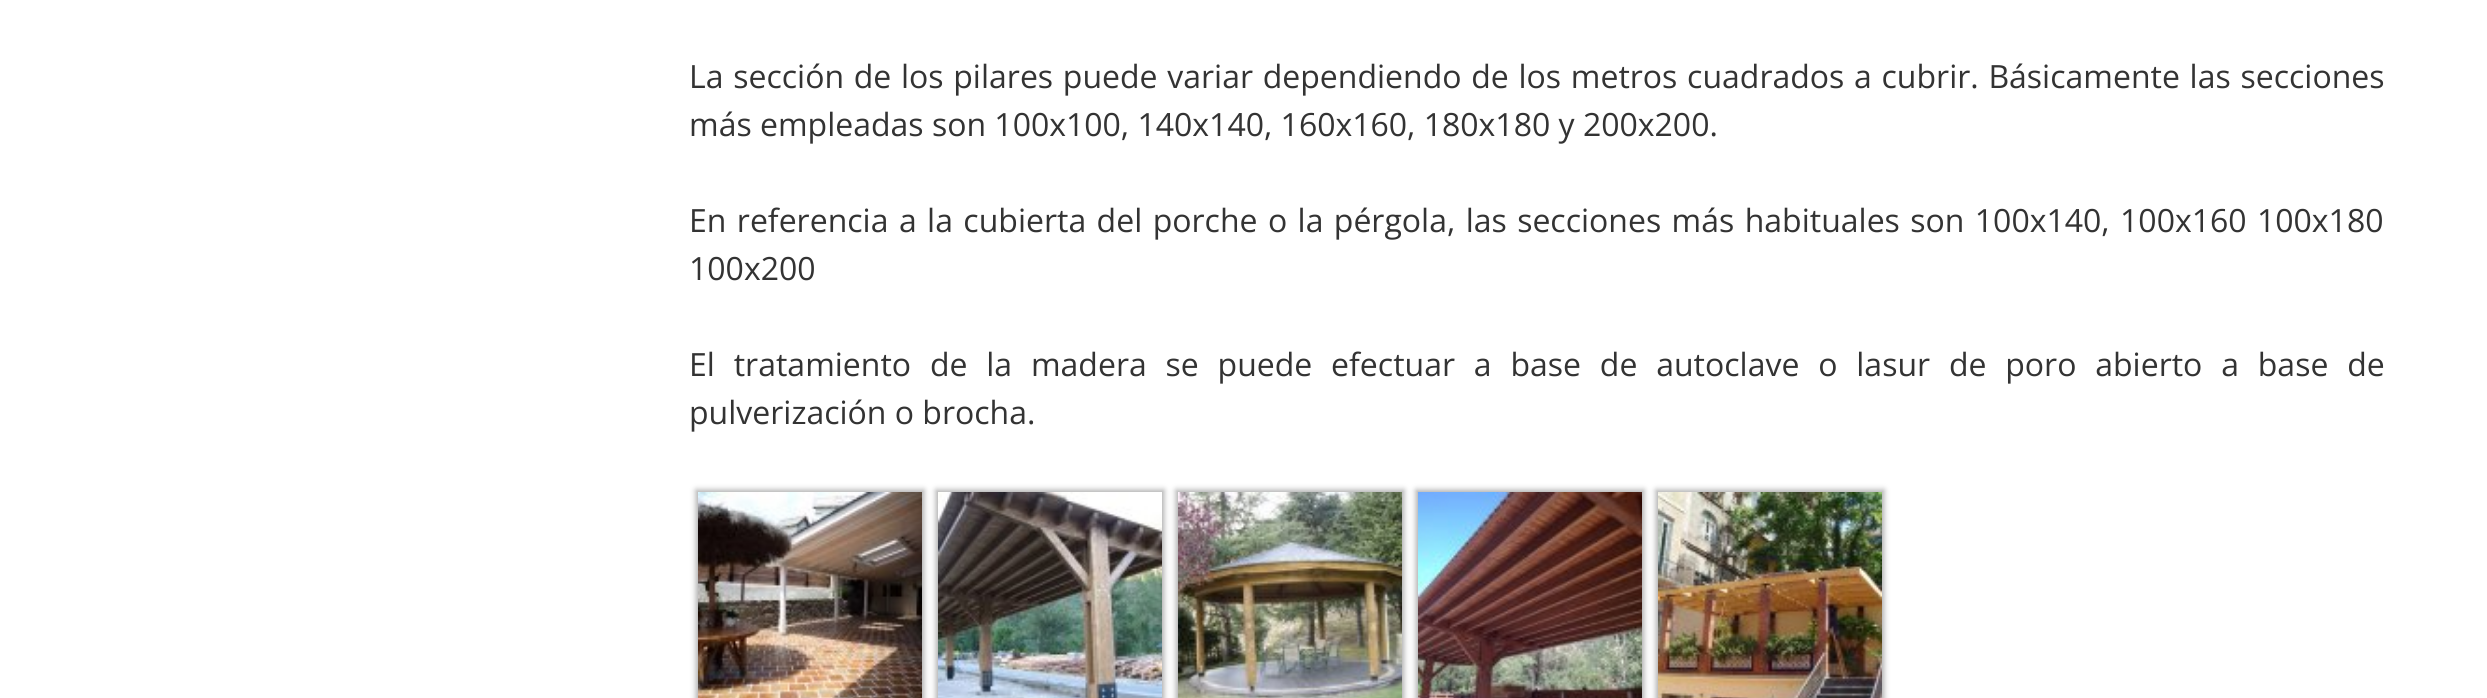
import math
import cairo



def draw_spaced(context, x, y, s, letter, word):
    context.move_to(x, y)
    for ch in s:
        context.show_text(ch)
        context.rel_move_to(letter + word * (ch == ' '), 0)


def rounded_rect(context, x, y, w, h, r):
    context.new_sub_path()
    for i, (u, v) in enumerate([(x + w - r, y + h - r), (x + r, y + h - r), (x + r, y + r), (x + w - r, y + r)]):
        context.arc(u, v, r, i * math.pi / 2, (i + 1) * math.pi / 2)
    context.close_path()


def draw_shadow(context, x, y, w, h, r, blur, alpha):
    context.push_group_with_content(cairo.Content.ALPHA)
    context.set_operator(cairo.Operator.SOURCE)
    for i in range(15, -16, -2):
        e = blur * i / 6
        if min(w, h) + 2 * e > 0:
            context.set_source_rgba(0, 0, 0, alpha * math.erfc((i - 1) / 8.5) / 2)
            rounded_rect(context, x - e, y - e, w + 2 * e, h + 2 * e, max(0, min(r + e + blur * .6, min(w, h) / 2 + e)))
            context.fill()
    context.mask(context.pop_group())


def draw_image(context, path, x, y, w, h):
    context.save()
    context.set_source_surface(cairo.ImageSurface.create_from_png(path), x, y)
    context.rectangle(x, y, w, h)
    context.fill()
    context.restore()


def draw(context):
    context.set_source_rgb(1, 1, 1)
    context.paint()
    context.set_source_rgb(170 / 255, 170 / 255, 170 / 255)
    draw_shadow(context, 696, 490, 228, 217, 0, 3, 1)
    draw_image(context, "images/1.png", 698, 492, 224, 206)
    draw_shadow(context, 936, 490, 228, 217, 0, 3, 1)
    draw_image(context, "images/2.png", 938, 492, 224, 206)
    draw_shadow(context, 1176, 490, 228, 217, 0, 3, 1)
    draw_image(context, "images/3.png", 1178, 492, 224, 206)
    draw_shadow(context, 1416, 490, 228, 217, 0, 3, 1)
    draw_image(context, "images/4.png", 1418, 492, 224, 206)
    draw_shadow(context, 1656, 490, 228, 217, 0, 3, 1)
    draw_image(context, "images/5.png", 1658, 492, 224, 206)
    context.select_font_face("Open Sans")
    context.set_font_size(32)
    context.set_source_rgb(51 / 255, 51 / 255, 51 / 255)
    draw_spaced(context, 689, 88, "La sección de los pilares puede variar dependiendo de los metros cuadrados a cubrir. Básicamente las secciones", 0, 1.4)
    context.move_to(689, 136)
    context.show_text("más empleadas son 100x100, 140x140, 160x160, 180x180 y 200x200.")
    draw_spaced(context, 689, 232, "En referencia a la cubierta del porche o la pérgola, las secciones más habituales son 100x140, 100x160 100x180", 0, 2.1)
    context.move_to(689, 280)
    context.show_text("100x200")
    draw_spaced(context, 689, 376, "El tratamiento de la madera se puede efectuar a base de autoclave o lasur de poro abierto a base de", 0, 10.5)
    context.move_to(689, 424)
    context.show_text("pulverización o brocha.")


surface = cairo.ImageSurface(cairo.Format.RGB24, 2487, 698)
context = cairo.Context(surface)
options = cairo.FontOptions()
options.set_hint_metrics(cairo.HintMetrics.OFF)
options.set_hint_style(cairo.HintStyle.NONE)
context.set_font_options(options)
context.set_miter_limit(4)
draw(context)
surface.write_to_png("out.png")
